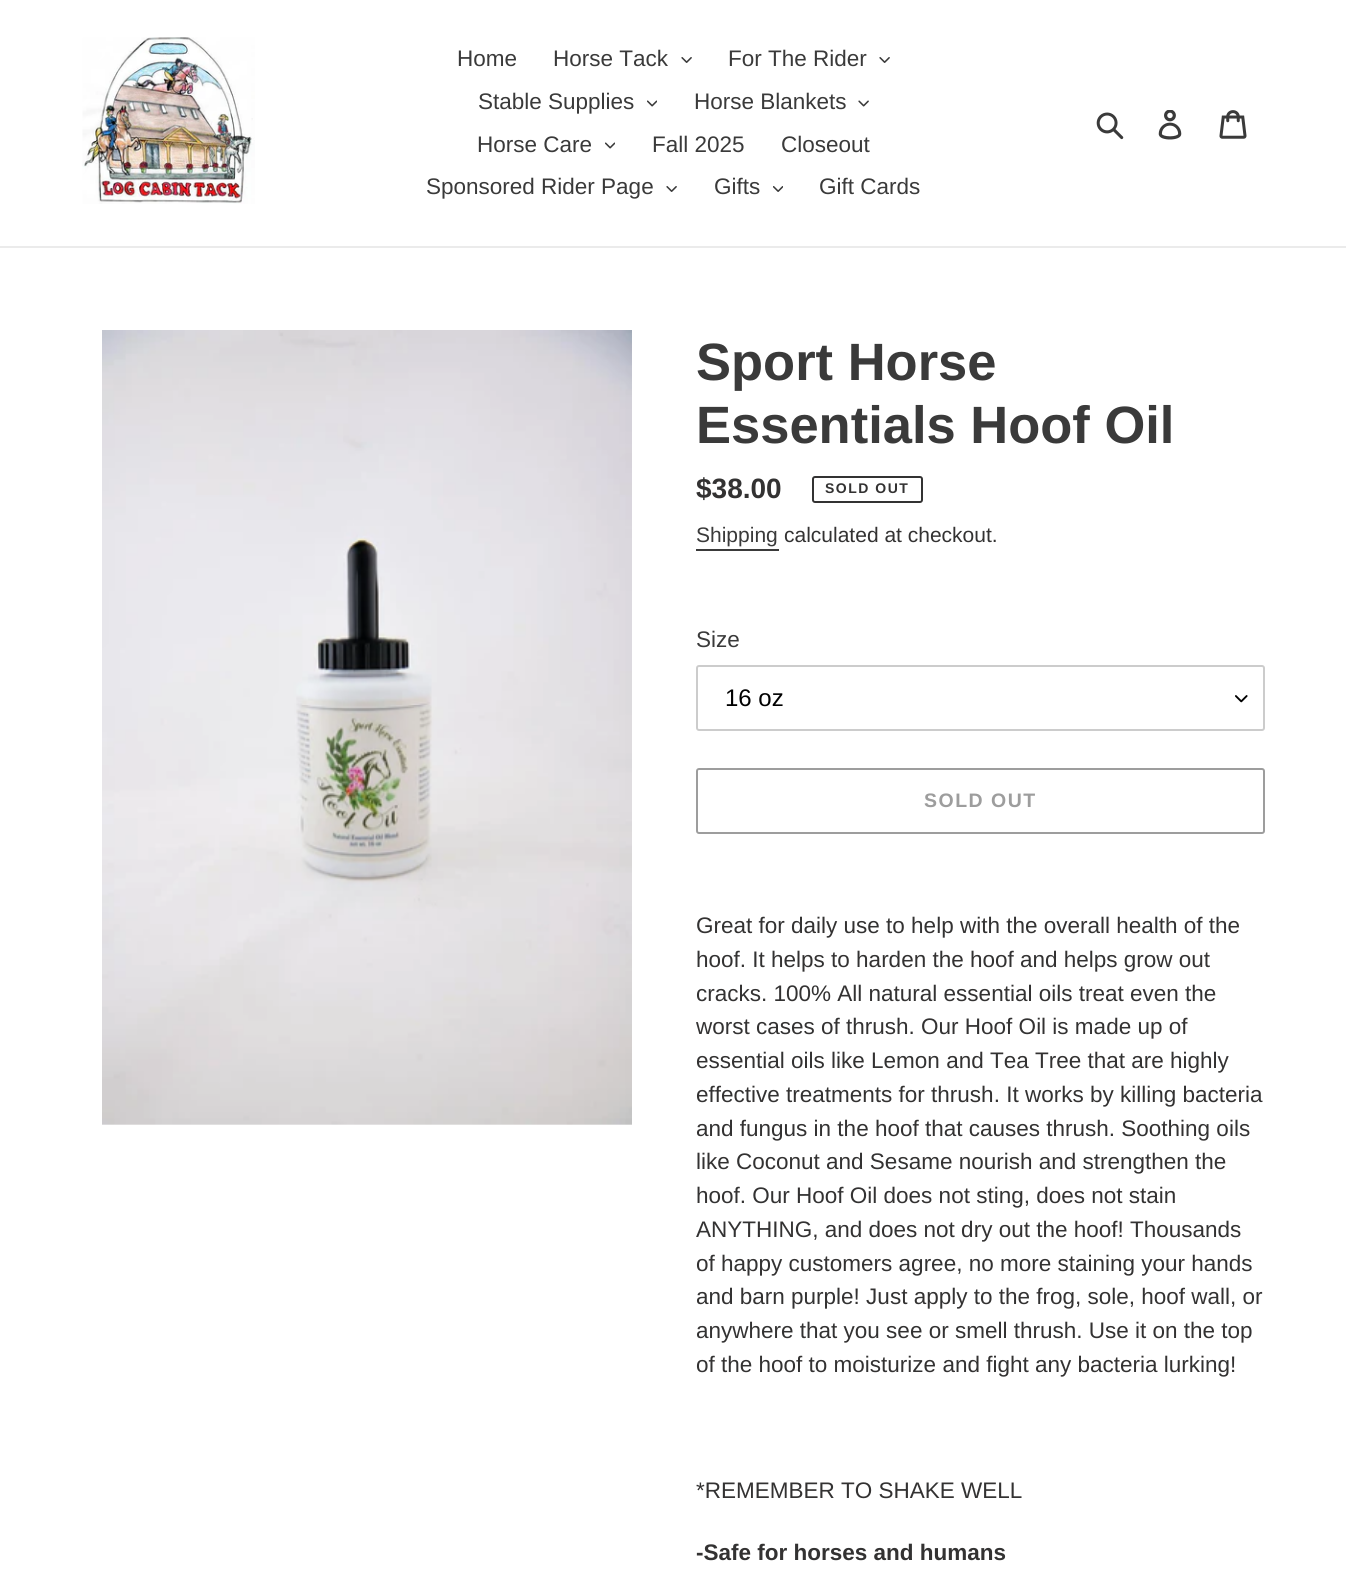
import math
import cairo



def draw_spaced(context, x, y, s, letter, word):
    context.move_to(x, y)
    for ch in s:
        context.show_text(ch)
        context.rel_move_to(letter + word * (ch == ' '), 0)


def rounded_rect(context, x, y, w, h, r):
    context.new_sub_path()
    for i, (u, v) in enumerate([(x + w - r, y + h - r), (x + r, y + h - r), (x + r, y + r), (x + w - r, y + r)]):
        context.arc(u, v, r, i * math.pi / 2, (i + 1) * math.pi / 2)
    context.close_path()


def draw_image(context, path, x, y, w, h):
    context.save()
    context.set_source_surface(cairo.ImageSurface.create_from_png(path), x, y)
    context.rectangle(x, y, w, h)
    context.fill()
    context.restore()


def draw(context):
    context.set_source_rgb(1, 1, 1)
    context.paint()
    context.set_source_rgb(235 / 255, 235 / 255, 235 / 255)
    context.rectangle(0, 246, 1346, 2)
    context.fill()
    draw_image(context, "images/1.png", 82, 37, 173, 167)
    draw_image(context, "images/2.png", 681, 57, 11, 6)
    draw_image(context, "images/2.png", 879, 57, 11, 6)
    draw_image(context, "images/3.png", 647, 100, 10, 7)
    draw_image(context, "images/4.png", 858, 100, 11, 7)
    draw_image(context, "images/3.png", 605, 142, 10, 7)
    draw_image(context, "images/2.png", 666, 186, 11, 6)
    draw_image(context, "images/5.png", 773, 186, 10, 6)
    draw_image(context, "images/6.png", 1096, 112, 28, 28)
    draw_image(context, "images/7.png", 1158, 110, 24, 30)
    draw_image(context, "images/8.png", 1219, 110, 28, 29)
    draw_image(context, "images/9.png", 102, 330, 530, 795)
    rounded_rect(context, 813, 477, 109, 25, 2)
    context.set_source_rgb(51 / 255, 50 / 255, 50 / 255)
    context.stroke()
    context.set_source_rgb(58 / 255, 58 / 255, 58 / 255)
    context.rectangle(696, 549, 83, 2)
    context.fill()
    draw_image(context, "images/10.png", 1235, 695, 13, 8)
    rounded_rect(context, 697, 666, 567, 64, 2)
    context.set_source_rgb(204 / 255, 204 / 255, 204 / 255)
    context.stroke()
    rounded_rect(context, 697, 769, 567, 64, 2)
    context.set_source_rgb(157 / 255, 157 / 255, 157 / 255)
    context.stroke()
    context.select_font_face("Liberation Sans")
    context.set_font_size(22.5)
    context.set_source_rgb(58 / 255, 58 / 255, 58 / 255)
    context.move_to(457, 66)
    context.show_text("Home")
    context.move_to(553, 66)
    context.show_text("Horse Tack")
    context.move_to(728, 66)
    context.show_text("For The Rider")
    context.move_to(478, 109)
    context.show_text("Stable Supplies")
    context.move_to(694, 109)
    context.show_text("Horse Blankets")
    context.move_to(477, 152)
    context.show_text("Horse Care")
    context.move_to(652, 152)
    context.show_text("Fall 2025")
    context.move_to(781, 152)
    context.show_text("Closeout")
    context.move_to(426, 194)
    context.show_text("Sponsored Rider Page")
    context.move_to(714, 194)
    context.show_text("Gifts")
    context.move_to(819, 194)
    context.show_text("Gift Cards")
    context.select_font_face("Liberation Sans", cairo.FontSlant.NORMAL, cairo.FontWeight.BOLD)
    context.set_font_size(52.5)
    context.move_to(696, 380)
    context.show_text("Sport Horse")
    context.move_to(696, 443)
    context.show_text("Essentials Hoof Oil")
    context.set_font_size(28)
    context.set_source_rgb(51 / 255, 50 / 255, 50 / 255)
    context.move_to(696, 498)
    context.show_text("$38.00")
    context.set_font_size(14)
    draw_spaced(context, 825, 493, "SOLD OUT", 1.5, 0)
    context.select_font_face("Liberation Sans")
    context.set_font_size(21)
    context.set_source_rgb(58 / 255, 58 / 255, 58 / 255)
    context.move_to(696, 542)
    context.show_text("Shipping")
    context.set_source_rgb(51 / 255, 50 / 255, 50 / 255)
    context.move_to(784, 542)
    context.show_text("calculated at checkout.")
    context.set_font_size(22.5)
    context.set_source_rgb(58 / 255, 58 / 255, 58 / 255)
    context.move_to(696, 647)
    context.show_text("Size")
    context.set_font_size(24)
    context.set_source_rgb(0, 0, 0)
    context.move_to(725, 706)
    context.show_text("16 oz")
    context.select_font_face("Liberation Sans", cairo.FontSlant.NORMAL, cairo.FontWeight.BOLD)
    context.set_font_size(19.5)
    context.set_source_rgb(157 / 255, 157 / 255, 157 / 255)
    draw_spaced(context, 924, 807, "SOLD OUT", 1.5, 0)
    context.select_font_face("Liberation Sans")
    context.set_font_size(22.5)
    context.set_source_rgb(51 / 255, 50 / 255, 50 / 255)
    context.move_to(696, 933)
    context.show_text("Great for daily use to help with the overall health of the")
    context.move_to(696, 967)
    context.show_text("hoof. It helps to harden the hoof and helps grow out")
    context.move_to(696, 1001)
    context.show_text("cracks. 100% All natural essential oils treat even the")
    context.move_to(696, 1034)
    context.show_text("worst cases of thrush. Our Hoof Oil is made up of")
    context.move_to(696, 1068)
    context.show_text("essential oils like Lemon and Tea Tree that are highly")
    context.move_to(696, 1102)
    context.show_text("effective treatments for thrush. It works by killing bacteria")
    context.move_to(696, 1136)
    context.show_text("and fungus in the hoof that causes thrush. Soothing oils")
    context.move_to(696, 1169)
    context.show_text("like Coconut and Sesame nourish and strengthen the")
    context.move_to(696, 1203)
    context.show_text("hoof. Our Hoof Oil does not sting, does not stain")
    context.move_to(696, 1237)
    context.show_text("ANYTHING, and does not dry out the hoof! Thousands")
    context.move_to(696, 1271)
    context.show_text("of happy customers agree, no more staining your hands")
    context.move_to(696, 1304)
    context.show_text("and barn purple! Just apply to the frog, sole, hoof wall, or")
    context.move_to(696, 1338)
    context.show_text("anywhere that you see or smell thrush. Use it on the top")
    context.move_to(696, 1372)
    context.show_text("of the hoof to moisturize and fight any bacteria lurking!")
    context.move_to(696, 1498)
    context.show_text("*REMEMBER TO SHAKE WELL")
    context.select_font_face("Liberation Sans", cairo.FontSlant.NORMAL, cairo.FontWeight.BOLD)
    context.move_to(696, 1560)
    context.show_text("-Safe for horses and humans")


surface = cairo.ImageSurface(cairo.Format.RGB24, 1346, 1571)
context = cairo.Context(surface)
options = cairo.FontOptions()
options.set_hint_metrics(cairo.HintMetrics.OFF)
options.set_hint_style(cairo.HintStyle.NONE)
context.set_font_options(options)
context.set_miter_limit(4)
draw(context)
surface.write_to_png("out.png")
